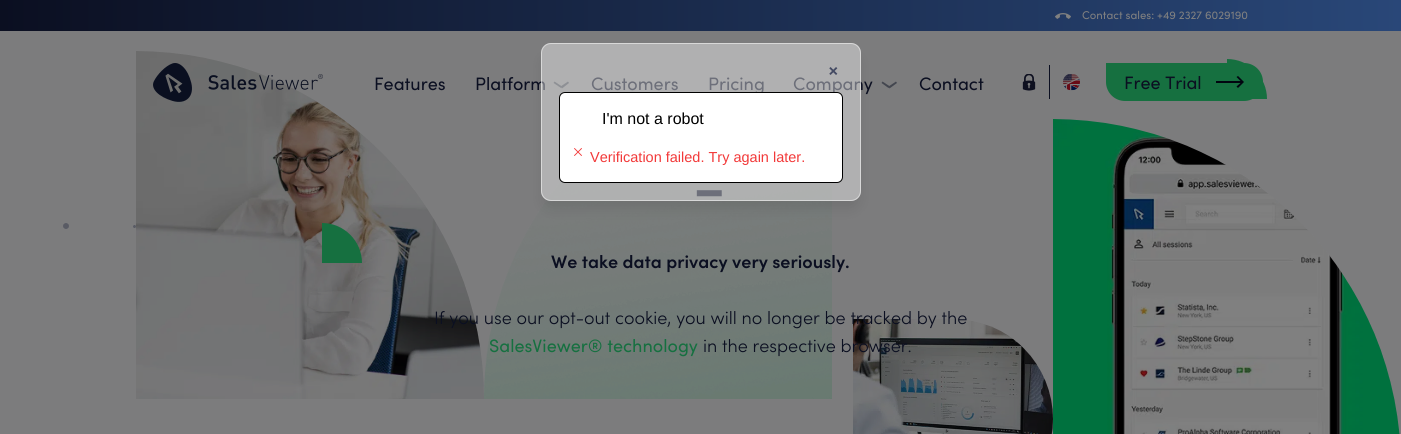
import math
import cairo



def draw_spaced(context, x, y, s, letter, word):
    context.move_to(x, y)
    for ch in s:
        context.show_text(ch)
        context.rel_move_to(letter + word * (ch == ' '), 0)


def rounded_rect(context, x, y, w, h, r):
    context.new_sub_path()
    for i, (u, v) in enumerate([(x + w - r, y + h - r), (x + r, y + h - r), (x + r, y + r), (x + w - r, y + r)]):
        context.arc(u, v, r, i * math.pi / 2, (i + 1) * math.pi / 2)
    context.close_path()


def draw_shadow(context, x, y, w, h, r, blur, alpha):
    context.push_group_with_content(cairo.Content.ALPHA)
    context.set_operator(cairo.Operator.SOURCE)
    for i in range(15, -16, -2):
        e = blur * i / 6
        if min(w, h) + 2 * e > 0:
            context.set_source_rgba(0, 0, 0, alpha * math.erfc((i - 1) / 8.5) / 2)
            rounded_rect(context, x - e, y - e, w + 2 * e, h + 2 * e, max(0, min(r + e + blur * .6, min(w, h) / 2 + e)))
            context.fill()
    context.mask(context.pop_group())


def draw_image(context, path, x, y, w, h):
    context.save()
    context.set_source_surface(cairo.ImageSurface.create_from_png(path), x, y)
    context.rectangle(x, y, w, h)
    context.fill()
    context.restore()


def draw(context):
    context.set_source_rgb(124 / 255, 124 / 255, 125 / 255)
    context.paint()
    gradient = cairo.LinearGradient(0, 16, 1401, 15)
    gradient.add_color_stop_rgba(0, 11 / 255, 15 / 255, 33 / 255, 1)
    gradient.add_color_stop_rgba(1, 41 / 255, 71 / 255, 120 / 255, 1)
    context.set_source(gradient)
    context.rectangle(0, 0, 1401, 31)
    context.fill()
    draw_image(context, "images/1.png", 1055, 13, 16, 6)
    draw_image(context, "images/6.png", 136, 51, 348, 348)
    draw_image(context, "images/2.png", 153, 63, 170, 39)
    context.set_source_rgb(67 / 255, 70 / 255, 79 / 255)
    context.new_path()
    context.move_to(554.5, 81.5)
    context.line_to(562, 86.5)
    context.line_to(561, 88)
    context.line_to(553.5, 83)
    context.close_path()
    context.fill()
    context.new_path()
    context.move_to(560.5, 86.5)
    context.line_to(568, 81.5)
    context.line_to(569, 83)
    context.line_to(562, 88.5)
    context.close_path()
    context.fill()
    context.new_path()
    context.move_to(882.5, 81.5)
    context.line_to(890, 86.5)
    context.line_to(888.5, 88)
    context.line_to(881.5, 83)
    context.close_path()
    context.fill()
    context.new_path()
    context.move_to(888.5, 86.5)
    context.line_to(896, 81.5)
    context.line_to(897, 83)
    context.line_to(889.5, 88.5)
    context.close_path()
    context.fill()
    context.set_source_rgb(11 / 255, 15 / 255, 33 / 255)
    context.rectangle(1049, 65, 1, 34)
    context.fill()
    draw_image(context, "images/3.png", 1022, 74, 14, 17)
    draw_image(context, "images/4.png", 1063, 74, 17, 17)
    context.set_source_rgb(22 / 255, 112 / 255, 64 / 255)
    context.new_path()
    context.move_to(1227, 59)
    context.curve_to(1249, 59, 1267, 77, 1267, 99)
    context.line_to(1227, 99)
    context.close_path()
    context.fill()
    context.new_path()
    context.move_to(1106, 63)
    context.line_to(1244, 63)
    context.curve_to(1254.5, 63, 1263, 71.5, 1263, 82)
    context.curve_to(1263, 92.5, 1254.5, 101, 1244, 101)
    context.line_to(1125, 101)
    context.curve_to(1114.5, 101, 1106, 92.5, 1106, 82)
    context.close_path()
    context.fill()
    context.set_source_rgb(1 / 255, 5 / 255, 16 / 255)
    context.new_path()
    context.move_to(1236.5, 77)
    context.line_to(1240.5, 81)
    context.line_to(1216, 81)
    context.line_to(1216, 83)
    context.line_to(1240.5, 83)
    context.line_to(1236.5, 86.5)
    context.line_to(1238, 88)
    context.line_to(1244, 82)
    context.line_to(1238, 76)
    context.close_path()
    context.fill()
    draw_image(context, "images/5.png", 63, 223, 73, 6)
    draw_image(context, "images/7.png", 484, 181, 348, 218)
    draw_image(context, "images/8.png", 853, 319, 200, 115)
    draw_image(context, "images/9.png", 1053, 119, 347, 315)
    context.set_source_rgb(22 / 255, 112 / 255, 64 / 255)
    context.new_path()
    context.move_to(322, 223)
    context.curve_to(344, 223, 362, 241, 362, 263)
    context.line_to(322, 263)
    context.close_path()
    context.fill()
    context.save()
    context.set_fill_rule(cairo.FillRule.EVEN_ODD)
    context.new_path()
    context.move_to(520, 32)
    context.line_to(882, 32)
    context.line_to(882, 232)
    context.line_to(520, 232)
    context.close_path()
    context.move_to(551, 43)
    context.line_to(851, 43)
    context.curve_to(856.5, 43, 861, 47.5, 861, 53)
    context.line_to(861, 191)
    context.curve_to(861, 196.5, 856.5, 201, 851, 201)
    context.line_to(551, 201)
    context.curve_to(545.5, 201, 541, 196.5, 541, 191)
    context.line_to(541, 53)
    context.curve_to(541, 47.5, 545.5, 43, 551, 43)
    context.close_path()
    context.clip()
    context.set_source_rgb(0, 0, 0)
    draw_shadow(context, 544, 56, 314, 152, 7, 7.5, 0.1)
    context.restore()
    context.select_font_face("Sofia")
    context.set_font_size(11.3)
    context.set_source_rgb(128 / 255, 128 / 255, 128 / 255)
    context.move_to(1082, 19)
    context.show_text("Contact sales: +49 2327 6029190")
    context.set_font_size(18)
    context.set_source_rgb(11 / 255, 15 / 255, 33 / 255)
    context.move_to(374, 90)
    context.show_text("Features")
    context.move_to(475, 90)
    context.show_text("Platform")
    context.move_to(591, 90)
    context.show_text("Customers")
    context.move_to(708, 90)
    context.show_text("Pricing")
    context.move_to(793, 90)
    context.show_text("Company")
    context.move_to(919, 90)
    context.show_text("Contact")
    context.move_to(1124, 89)
    context.show_text("Free Trial")
    context.set_font_size(72)
    draw_spaced(context, 692, 210, "-", 1, 0)
    context.select_font_face("Sofia SemiBold")
    context.set_font_size(18)
    context.move_to(551, 268)
    context.show_text("We take data privacy very seriously.")
    context.select_font_face("Sofia Light")
    context.move_to(434, 324)
    context.show_text("If you use our opt-out cookie, you will no longer be tracked by the")
    context.select_font_face("Sofia")
    context.set_source_rgb(22 / 255, 112 / 255, 64 / 255)
    context.move_to(489, 352)
    context.show_text("SalesViewer® technology")
    context.select_font_face("Sofia Light")
    context.set_source_rgb(11 / 255, 15 / 255, 33 / 255)
    context.move_to(703, 352)
    context.show_text("in the respective browser.")
    context.set_source_rgba(1, 1, 1, 0.4)
    rounded_rect(context, 541, 43, 320, 158, 10)
    context.fill()
    rounded_rect(context, 541.5, 43.5, 319, 157, 9.5)
    context.set_source_rgba(1, 1, 1, 0.5)
    context.set_line_width(1)
    context.stroke()
    context.select_font_face("Sofia")
    context.set_font_size(22)
    context.set_source_rgb(68 / 255, 74 / 255, 99 / 255)
    context.move_to(828, 77)
    context.show_text("×")
    context.set_source_rgb(1, 1, 1)
    rounded_rect(context, 559.5, 92.5, 283, 90, 5.5)
    context.fill_preserve()
    context.set_source_rgb(0, 0, 0)
    context.stroke()
    context.select_font_face("Liberation Sans")
    context.set_font_size(16)
    context.move_to(602, 124)
    context.show_text("I'm not a robot")
    context.new_path()
    context.move_to(574.5, 155.5)
    context.line_to(581.5, 148.5)
    context.move_to(574.5, 148.5)
    context.line_to(581.5, 155.5)
    context.set_source_rgb(242 / 255, 57 / 255, 57 / 255)
    context.set_line_width(0.9)
    context.set_line_cap(cairo.LineCap.ROUND)
    context.set_line_join(cairo.LineJoin.ROUND)
    context.stroke()
    context.set_font_size(14.5)
    context.move_to(590, 162)
    context.show_text("Verification failed. Try again later.")


surface = cairo.ImageSurface(cairo.Format.RGB24, 1401, 434)
context = cairo.Context(surface)
options = cairo.FontOptions()
options.set_hint_metrics(cairo.HintMetrics.OFF)
options.set_hint_style(cairo.HintStyle.NONE)
context.set_font_options(options)
context.set_miter_limit(4)
draw(context)
surface.write_to_png("out.png")
